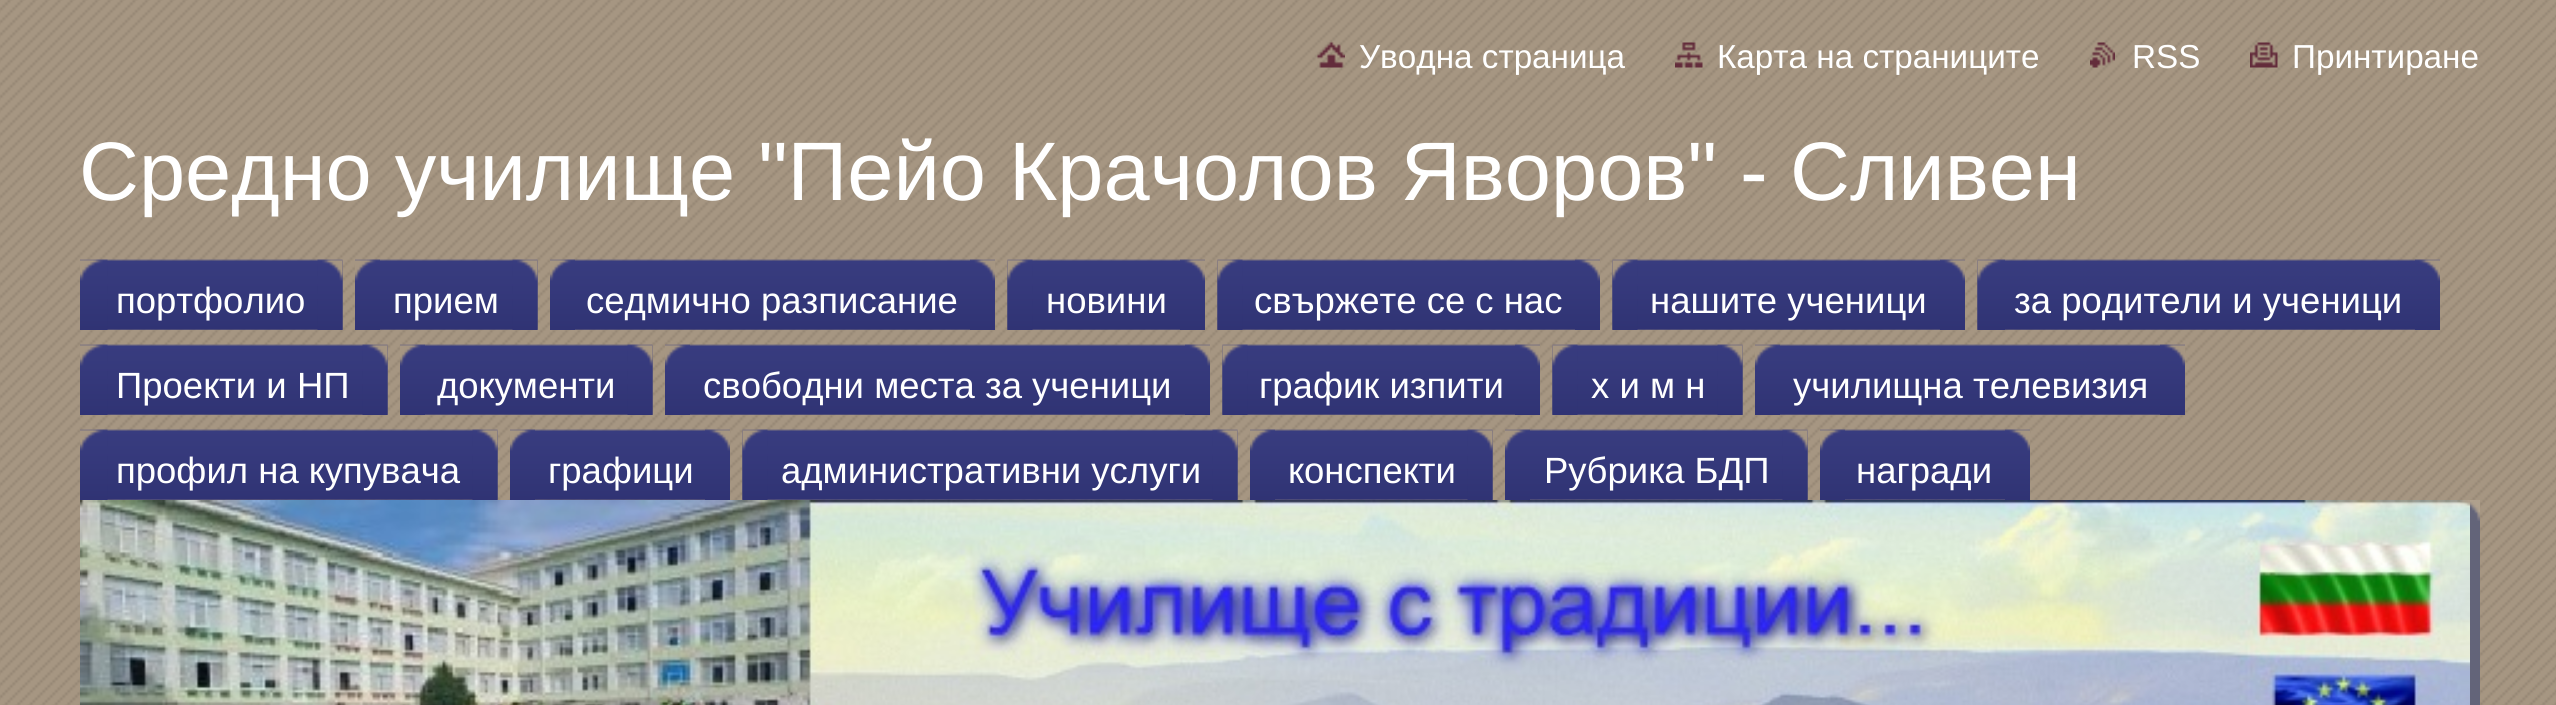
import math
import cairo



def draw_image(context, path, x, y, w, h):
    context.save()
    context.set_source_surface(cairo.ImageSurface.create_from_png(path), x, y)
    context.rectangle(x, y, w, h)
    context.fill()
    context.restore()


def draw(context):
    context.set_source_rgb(1, 1, 1)
    context.paint()
    draw_image(context, "images/1.png", 0, 0, 2556, 705)
    draw_image(context, "images/2.png", 1317, 42, 28, 26)
    draw_image(context, "images/3.png", 1675, 42, 28, 26)
    draw_image(context, "images/4.png", 2090, 42, 25, 26)
    draw_image(context, "images/5.png", 2250, 42, 28, 26)
    draw_image(context, "images/6.png", 80, 259, 263, 71)
    draw_image(context, "images/7.png", 80, 259, 28, 71)
    draw_image(context, "images/8.png", 317, 259, 26, 71)
    draw_image(context, "images/9.png", 355, 259, 183, 71)
    draw_image(context, "images/10.png", 355, 259, 25, 71)
    draw_image(context, "images/11.png", 512, 259, 26, 71)
    draw_image(context, "images/12.png", 550, 259, 445, 71)
    draw_image(context, "images/13.png", 550, 259, 25, 71)
    draw_image(context, "images/14.png", 970, 259, 25, 71)
    draw_image(context, "images/15.png", 1007, 259, 198, 71)
    draw_image(context, "images/16.png", 1007, 259, 26, 71)
    draw_image(context, "images/17.png", 1180, 259, 25, 71)
    draw_image(context, "images/18.png", 1217, 259, 383, 71)
    draw_image(context, "images/19.png", 1217, 259, 26, 71)
    draw_image(context, "images/20.png", 1575, 259, 25, 71)
    draw_image(context, "images/21.png", 1612, 259, 353, 71)
    draw_image(context, "images/22.png", 1612, 259, 26, 71)
    draw_image(context, "images/23.png", 1940, 259, 25, 71)
    draw_image(context, "images/24.png", 1977, 259, 463, 71)
    draw_image(context, "images/25.png", 1977, 259, 28, 71)
    draw_image(context, "images/23.png", 2415, 259, 25, 71)
    draw_image(context, "images/26.png", 80, 344, 308, 71)
    draw_image(context, "images/27.png", 80, 344, 28, 71)
    draw_image(context, "images/28.png", 362, 344, 26, 71)
    draw_image(context, "images/29.png", 400, 344, 253, 71)
    draw_image(context, "images/30.png", 400, 344, 25, 71)
    draw_image(context, "images/11.png", 627, 344, 26, 71)
    draw_image(context, "images/31.png", 665, 344, 545, 71)
    draw_image(context, "images/32.png", 665, 344, 25, 71)
    draw_image(context, "images/33.png", 1185, 344, 25, 71)
    draw_image(context, "images/34.png", 1222, 344, 318, 71)
    draw_image(context, "images/35.png", 1222, 344, 26, 71)
    draw_image(context, "images/20.png", 1515, 344, 25, 71)
    draw_image(context, "images/36.png", 1552, 344, 191, 71)
    draw_image(context, "images/22.png", 1552, 344, 26, 71)
    draw_image(context, "images/37.png", 1717, 344, 26, 71)
    draw_image(context, "images/38.png", 1755, 344, 430, 71)
    draw_image(context, "images/39.png", 1755, 344, 25, 71)
    draw_image(context, "images/40.png", 2160, 344, 25, 71)
    draw_image(context, "images/41.png", 80, 429, 418, 71)
    draw_image(context, "images/42.png", 80, 429, 28, 71)
    draw_image(context, "images/43.png", 472, 429, 26, 71)
    draw_image(context, "images/44.png", 510, 429, 220, 71)
    draw_image(context, "images/45.png", 510, 429, 25, 71)
    draw_image(context, "images/46.png", 705, 429, 25, 71)
    draw_image(context, "images/47.png", 742, 429, 496, 71)
    draw_image(context, "images/48.png", 742, 429, 26, 71)
    draw_image(context, "images/49.png", 1212, 429, 26, 71)
    draw_image(context, "images/50.png", 1250, 429, 243, 71)
    draw_image(context, "images/51.png", 1250, 429, 25, 71)
    draw_image(context, "images/52.png", 1467, 429, 26, 71)
    draw_image(context, "images/53.png", 1505, 429, 303, 71)
    draw_image(context, "images/54.png", 1505, 429, 25, 71)
    draw_image(context, "images/55.png", 1782, 429, 26, 71)
    draw_image(context, "images/56.png", 1820, 429, 210, 71)
    draw_image(context, "images/57.png", 1820, 429, 25, 71)
    draw_image(context, "images/46.png", 2005, 429, 25, 71)
    context.set_source_rgb(99 / 255, 100 / 255, 121 / 255)
    context.rectangle(2470, 501, 10, 204)
    context.fill()
    draw_image(context, "images/58.png", 80, 500, 2390, 205)
    draw_image(context, "images/59.png", 2460, 500, 20, 21)
    context.select_font_face("Liberation Sans")
    context.set_font_size(33.25)
    context.set_source_rgb(1, 1, 1)
    context.move_to(1359, 68)
    context.show_text("Уводна страница")
    context.move_to(1717, 68)
    context.show_text("Карта на страниците")
    context.move_to(2132, 68)
    context.show_text("RSS")
    context.move_to(2292, 68)
    context.show_text("Принтиране")
    context.set_font_size(83)
    context.move_to(79, 200)
    context.show_text("Средно училище \"Пейо Крачолов Яворов\" -")
    context.move_to(1790, 200)
    context.show_text("Сливен")
    context.set_font_size(36.5)
    context.move_to(116, 313)
    context.show_text("портфолио")
    context.move_to(393, 313)
    context.show_text("прием")
    context.move_to(586, 313)
    context.show_text("седмично разписание")
    context.move_to(1046, 313)
    context.show_text("новини")
    context.move_to(1254, 313)
    context.show_text("свържете се с нас")
    context.move_to(1650, 313)
    context.show_text("нашите ученици")
    context.move_to(2014, 313)
    context.show_text("за родители и ученици")
    context.move_to(116, 398)
    context.show_text("Проекти и НП")
    context.move_to(437, 398)
    context.show_text("документи")
    context.move_to(703, 398)
    context.show_text("свободни места за ученици")
    context.move_to(1259, 398)
    context.show_text("график изпити")
    context.move_to(1591, 398)
    context.show_text("х и м н")
    context.move_to(1793, 398)
    context.show_text("училищна телевизия")
    context.move_to(116, 483)
    context.show_text("профил на купувача")
    context.move_to(548, 483)
    context.show_text("графици")
    context.move_to(781, 483)
    context.show_text("административни услуги")
    context.move_to(1288, 483)
    context.show_text("конспекти")
    context.move_to(1544, 483)
    context.show_text("Рубрика БДП")
    context.move_to(1856, 483)
    context.show_text("награди")


surface = cairo.ImageSurface(cairo.Format.RGB24, 2556, 705)
context = cairo.Context(surface)
options = cairo.FontOptions()
options.set_hint_metrics(cairo.HintMetrics.OFF)
options.set_hint_style(cairo.HintStyle.NONE)
context.set_font_options(options)
context.set_miter_limit(4)
draw(context)
surface.write_to_png("out.png")
